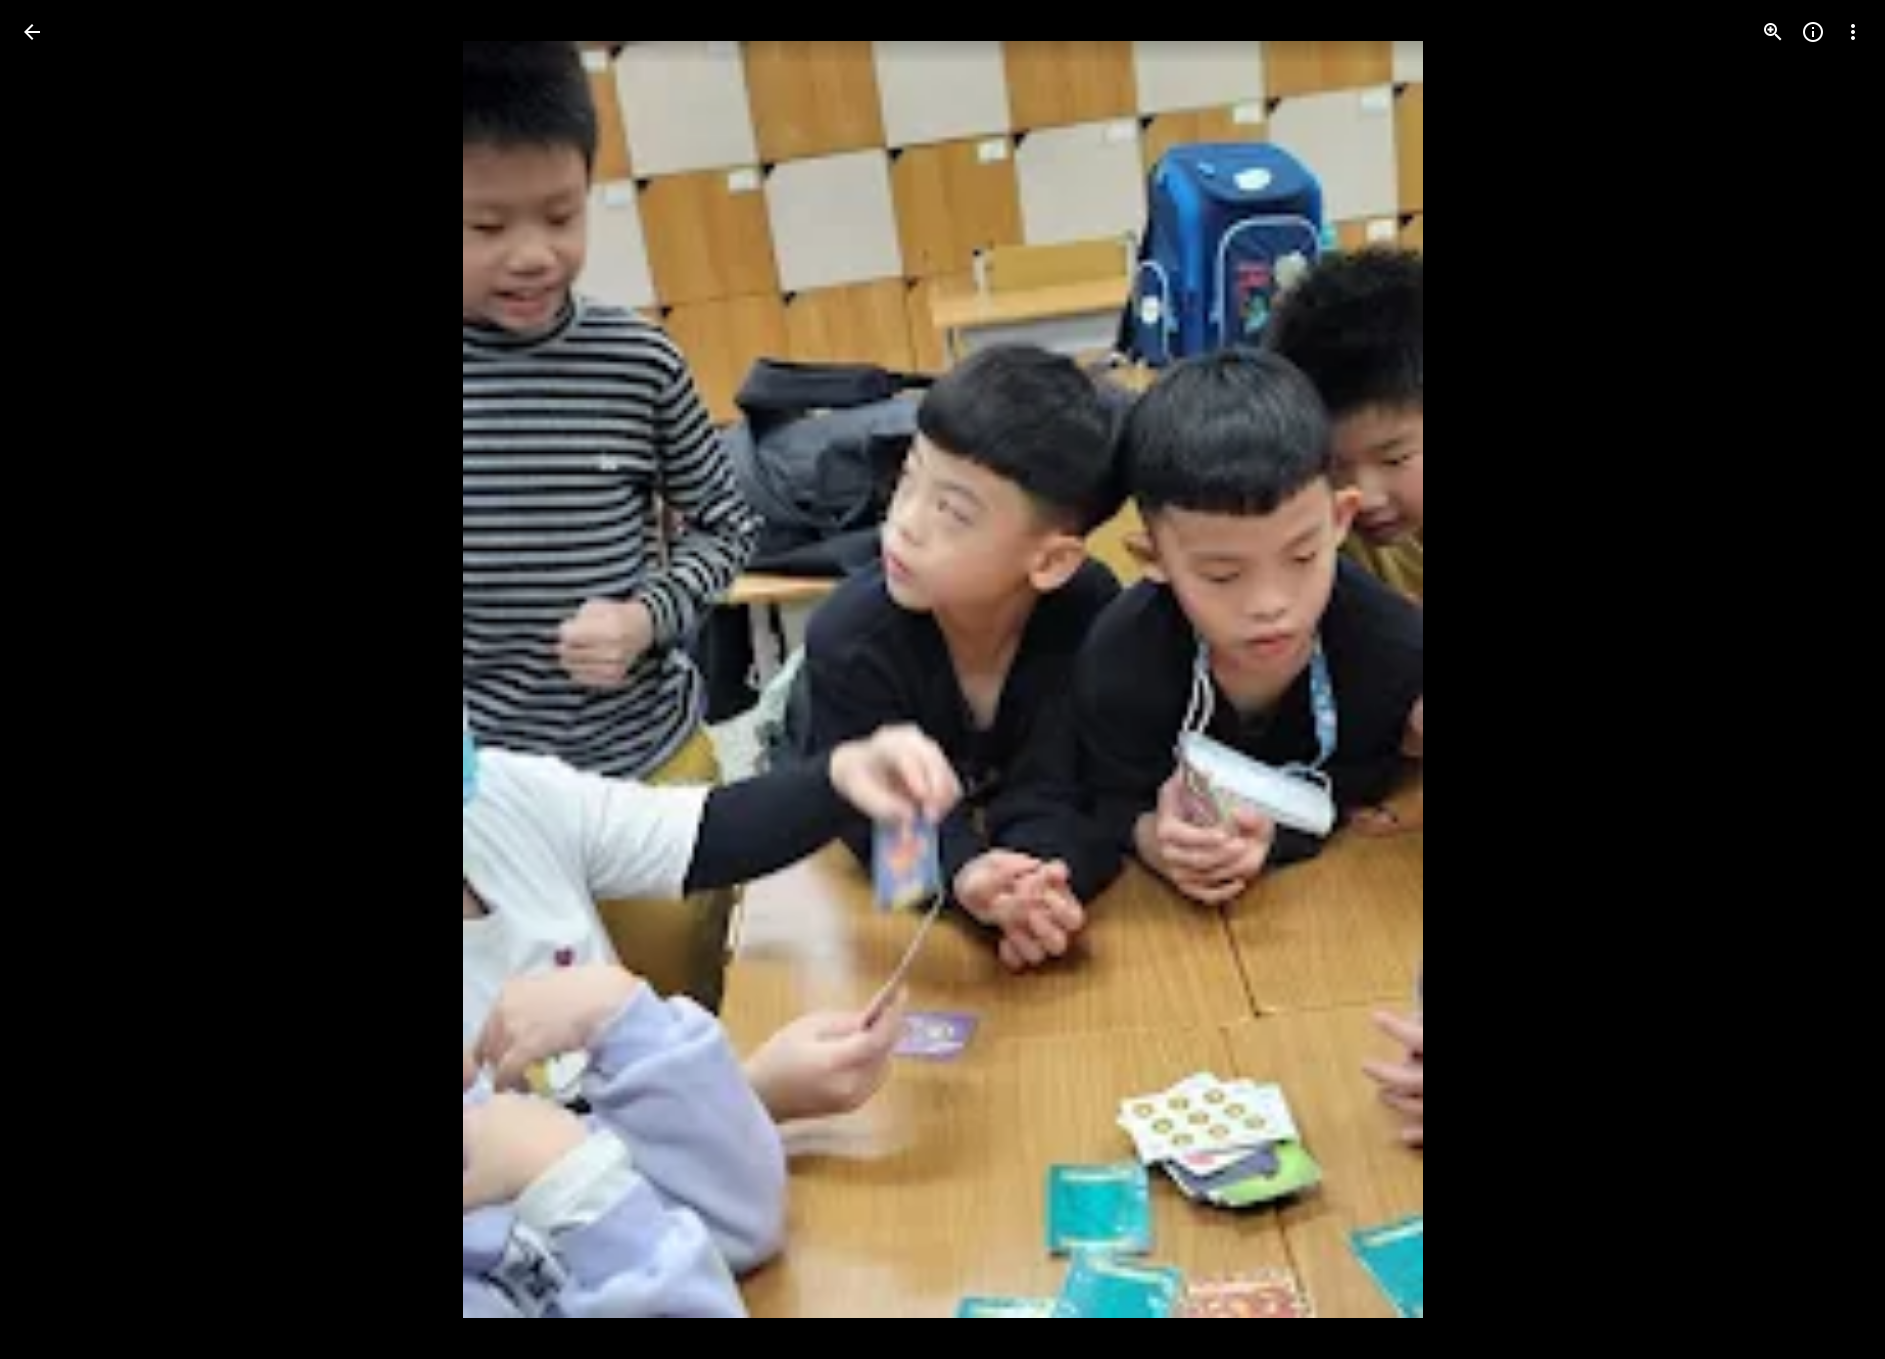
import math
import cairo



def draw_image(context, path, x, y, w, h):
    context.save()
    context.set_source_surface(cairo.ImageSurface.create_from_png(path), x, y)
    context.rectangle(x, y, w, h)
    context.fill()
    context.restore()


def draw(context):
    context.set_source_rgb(0, 0, 0)
    context.paint()
    draw_image(context, "images/5.png", 463, 41, 960, 1277)
    gradient = cairo.LinearGradient(943, 0, 943, 64)
    gradient.add_color_stop_rgba(0, 0, 0, 0, 0.6)
    gradient.add_color_stop_rgba(1, 0, 0, 0, 0)
    context.set_source(gradient)
    context.rectangle(463, 41, 960, 21)
    context.fill()
    draw_image(context, "images/1.png", 24, 24, 16, 16)
    draw_image(context, "images/2.png", 1764, 23, 18, 18)
    draw_image(context, "images/3.png", 1803, 22, 20, 20)
    draw_image(context, "images/4.png", 1851, 24, 4, 16)


surface = cairo.ImageSurface(cairo.Format.RGB24, 1885, 1359)
context = cairo.Context(surface)
options = cairo.FontOptions()
options.set_hint_metrics(cairo.HintMetrics.OFF)
options.set_hint_style(cairo.HintStyle.NONE)
context.set_font_options(options)
context.set_miter_limit(4)
draw(context)
surface.write_to_png("out.png")
